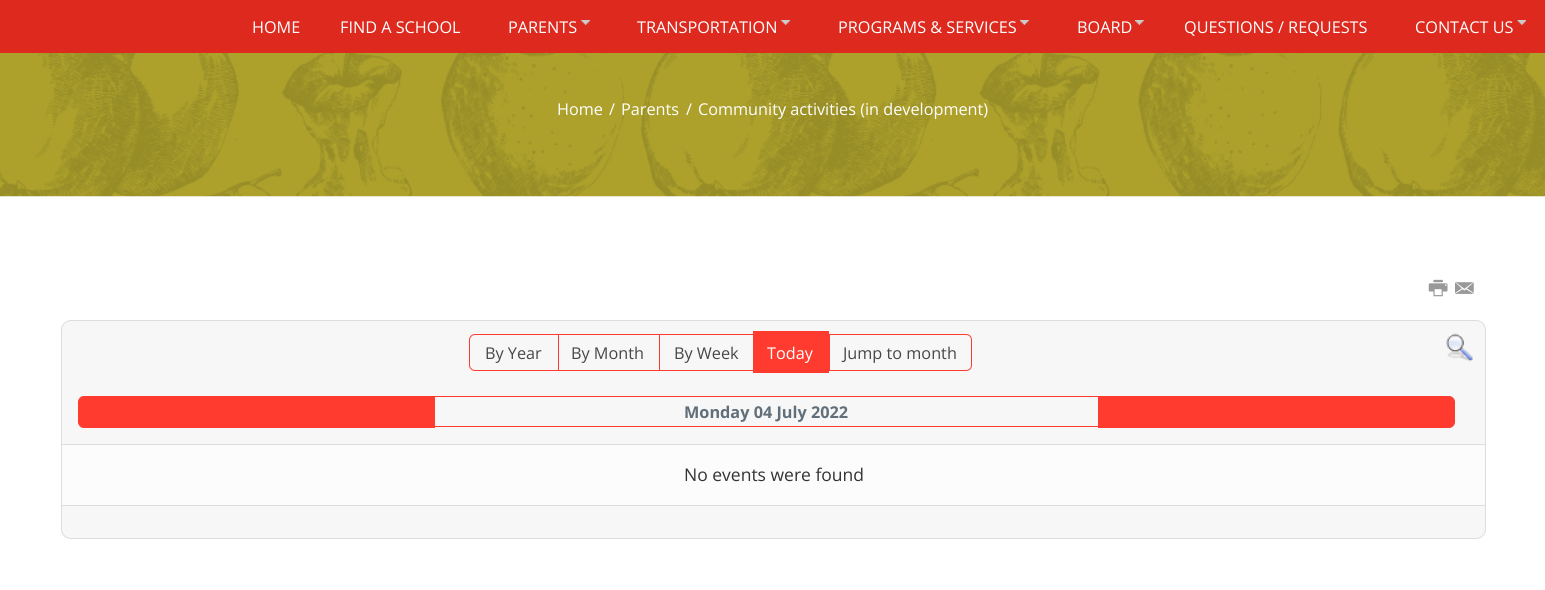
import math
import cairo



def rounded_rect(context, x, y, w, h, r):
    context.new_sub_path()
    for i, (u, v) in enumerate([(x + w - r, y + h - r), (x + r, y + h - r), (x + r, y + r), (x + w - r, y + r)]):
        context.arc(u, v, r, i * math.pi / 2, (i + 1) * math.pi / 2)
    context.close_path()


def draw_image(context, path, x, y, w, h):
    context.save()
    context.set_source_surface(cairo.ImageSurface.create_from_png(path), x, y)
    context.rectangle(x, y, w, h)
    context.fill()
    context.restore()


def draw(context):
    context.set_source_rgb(1, 1, 1)
    context.paint()
    context.set_source_rgb(221 / 255, 41 / 255, 30 / 255)
    context.rectangle(0, 0, 1545, 53)
    context.fill()
    draw_image(context, "images/1.png", 581, 20, 9, 5)
    draw_image(context, "images/1.png", 781, 20, 9, 5)
    draw_image(context, "images/2.png", 1020, 20, 9, 5)
    draw_image(context, "images/3.png", 1135, 20, 9, 5)
    draw_image(context, "images/4.png", 1517, 20, 9, 5)
    draw_image(context, "images/5.png", 0, 53, 1545, 144)
    draw_image(context, "images/6.png", 1428, 279, 20, 18)
    draw_image(context, "images/7.png", 1455, 282, 19, 12)
    context.set_source_rgb(247 / 255, 247 / 255, 247 / 255)
    rounded_rect(context, 61.5, 320.5, 1424, 218, 9.5)
    context.fill_preserve()
    context.set_source_rgb(221 / 255, 221 / 255, 221 / 255)
    context.set_line_width(1)
    context.stroke()
    context.new_path()
    context.move_to(475, 334.5)
    context.line_to(558.5, 334.5)
    context.line_to(558.5, 370.5)
    context.line_to(475, 370.5)
    context.curve_to(472, 370.5, 469.5, 368, 469.5, 365)
    context.line_to(469.5, 340)
    context.curve_to(469.5, 337, 472, 334.5, 475, 334.5)
    context.close_path()
    context.set_source_rgb(1, 59 / 255, 48 / 255)
    context.stroke()
    context.rectangle(556, 334, 104, 1)
    context.fill()
    context.rectangle(659, 334, 1, 37)
    context.fill()
    context.rectangle(556, 370, 199, 1)
    context.fill()
    context.rectangle(659, 334, 96, 1)
    context.fill()
    context.rectangle(829, 334, 1, 37)
    context.fill()
    context.rectangle(753, 331, 76, 42)
    context.fill()
    context.set_fill_rule(cairo.FillRule.EVEN_ODD)
    context.new_path()
    context.move_to(828, 334)
    context.line_to(966, 334)
    context.curve_to(970, 334, 972, 337, 972, 340)
    context.line_to(972, 365)
    context.curve_to(972, 368, 970, 371, 966, 371)
    context.line_to(828, 371)
    context.close_path()
    context.move_to(828, 335)
    context.line_to(966, 335)
    context.curve_to(969, 335, 971, 337, 971, 340)
    context.line_to(971, 365)
    context.curve_to(971, 368, 969, 370, 966, 370)
    context.line_to(828, 370)
    context.close_path()
    context.fill()
    draw_image(context, "images/8.png", 1446, 333, 27, 29)
    context.new_path()
    context.move_to(84, 396.5)
    context.line_to(434.5, 396.5)
    context.line_to(434.5, 427.5)
    context.line_to(84, 427.5)
    context.curve_to(81, 427.5, 78.5, 425, 78.5, 422)
    context.line_to(78.5, 402)
    context.curve_to(78.5, 399, 81, 396.5, 84, 396.5)
    context.close_path()
    context.fill_preserve()
    context.stroke()
    context.rectangle(435, 396, 663, 1)
    context.fill()
    context.rectangle(435, 426, 663, 1)
    context.fill()
    context.new_path()
    context.move_to(1098.5, 396.5)
    context.line_to(1449, 396.5)
    context.curve_to(1452, 396.5, 1454.5, 399, 1454.5, 402)
    context.line_to(1454.5, 422)
    context.curve_to(1454.5, 425, 1452, 427.5, 1449, 427.5)
    context.line_to(1098.5, 427.5)
    context.close_path()
    context.fill_preserve()
    context.stroke()
    context.set_source_rgb(252 / 255, 252 / 255, 252 / 255)
    context.rectangle(61.5, 444.5, 1424, 61)
    context.fill_preserve()
    context.set_source_rgb(221 / 255, 221 / 255, 221 / 255)
    context.stroke()
    context.select_font_face("Open Sans")
    context.set_font_size(16.25)
    context.set_source_rgb(1, 1, 1)
    context.move_to(252, 33)
    context.show_text("HOME")
    context.move_to(340, 33)
    context.show_text("FIND A SCHOOL")
    context.move_to(508, 33)
    context.show_text("PARENTS")
    context.move_to(637, 33)
    context.show_text("TRANSPORTATION")
    context.move_to(838, 33)
    context.show_text("PROGRAMS & SERVICES")
    context.move_to(1077, 33)
    context.show_text("BOARD")
    context.move_to(1184, 33)
    context.show_text("QUESTIONS / REQUESTS")
    context.move_to(1415, 33)
    context.show_text("CONTACT US")
    context.move_to(557, 115)
    context.show_text("Home")
    context.move_to(609, 115)
    context.show_text("/")
    context.move_to(621, 115)
    context.show_text("Parents")
    context.move_to(686, 115)
    context.show_text("/")
    context.move_to(698, 115)
    context.show_text("Community activities (in development)")
    context.set_source_rgb(71 / 255, 71 / 255, 71 / 255)
    context.move_to(485, 359)
    context.show_text("By Year")
    context.move_to(571, 359)
    context.show_text("By Month")
    context.move_to(674, 359)
    context.show_text("By Week")
    context.set_source_rgb(1, 1, 1)
    context.move_to(767, 359)
    context.show_text("Today")
    context.set_source_rgb(71 / 255, 71 / 255, 71 / 255)
    context.move_to(843, 359)
    context.show_text("Jump to month")
    context.select_font_face("Open Sans", cairo.FontSlant.NORMAL, cairo.FontWeight.BOLD)
    context.set_source_rgb(96 / 255, 111 / 255, 121 / 255)
    context.move_to(684, 418)
    context.show_text("Monday 04 July 2022")
    context.select_font_face("Open Sans")
    context.set_font_size(17.5)
    context.set_source_rgb(51 / 255, 51 / 255, 51 / 255)
    context.move_to(684, 481)
    context.show_text("No events were found")


surface = cairo.ImageSurface(cairo.Format.RGB24, 1545, 590)
context = cairo.Context(surface)
options = cairo.FontOptions()
options.set_hint_metrics(cairo.HintMetrics.OFF)
options.set_hint_style(cairo.HintStyle.NONE)
context.set_font_options(options)
context.set_miter_limit(4)
draw(context)
surface.write_to_png("out.png")
